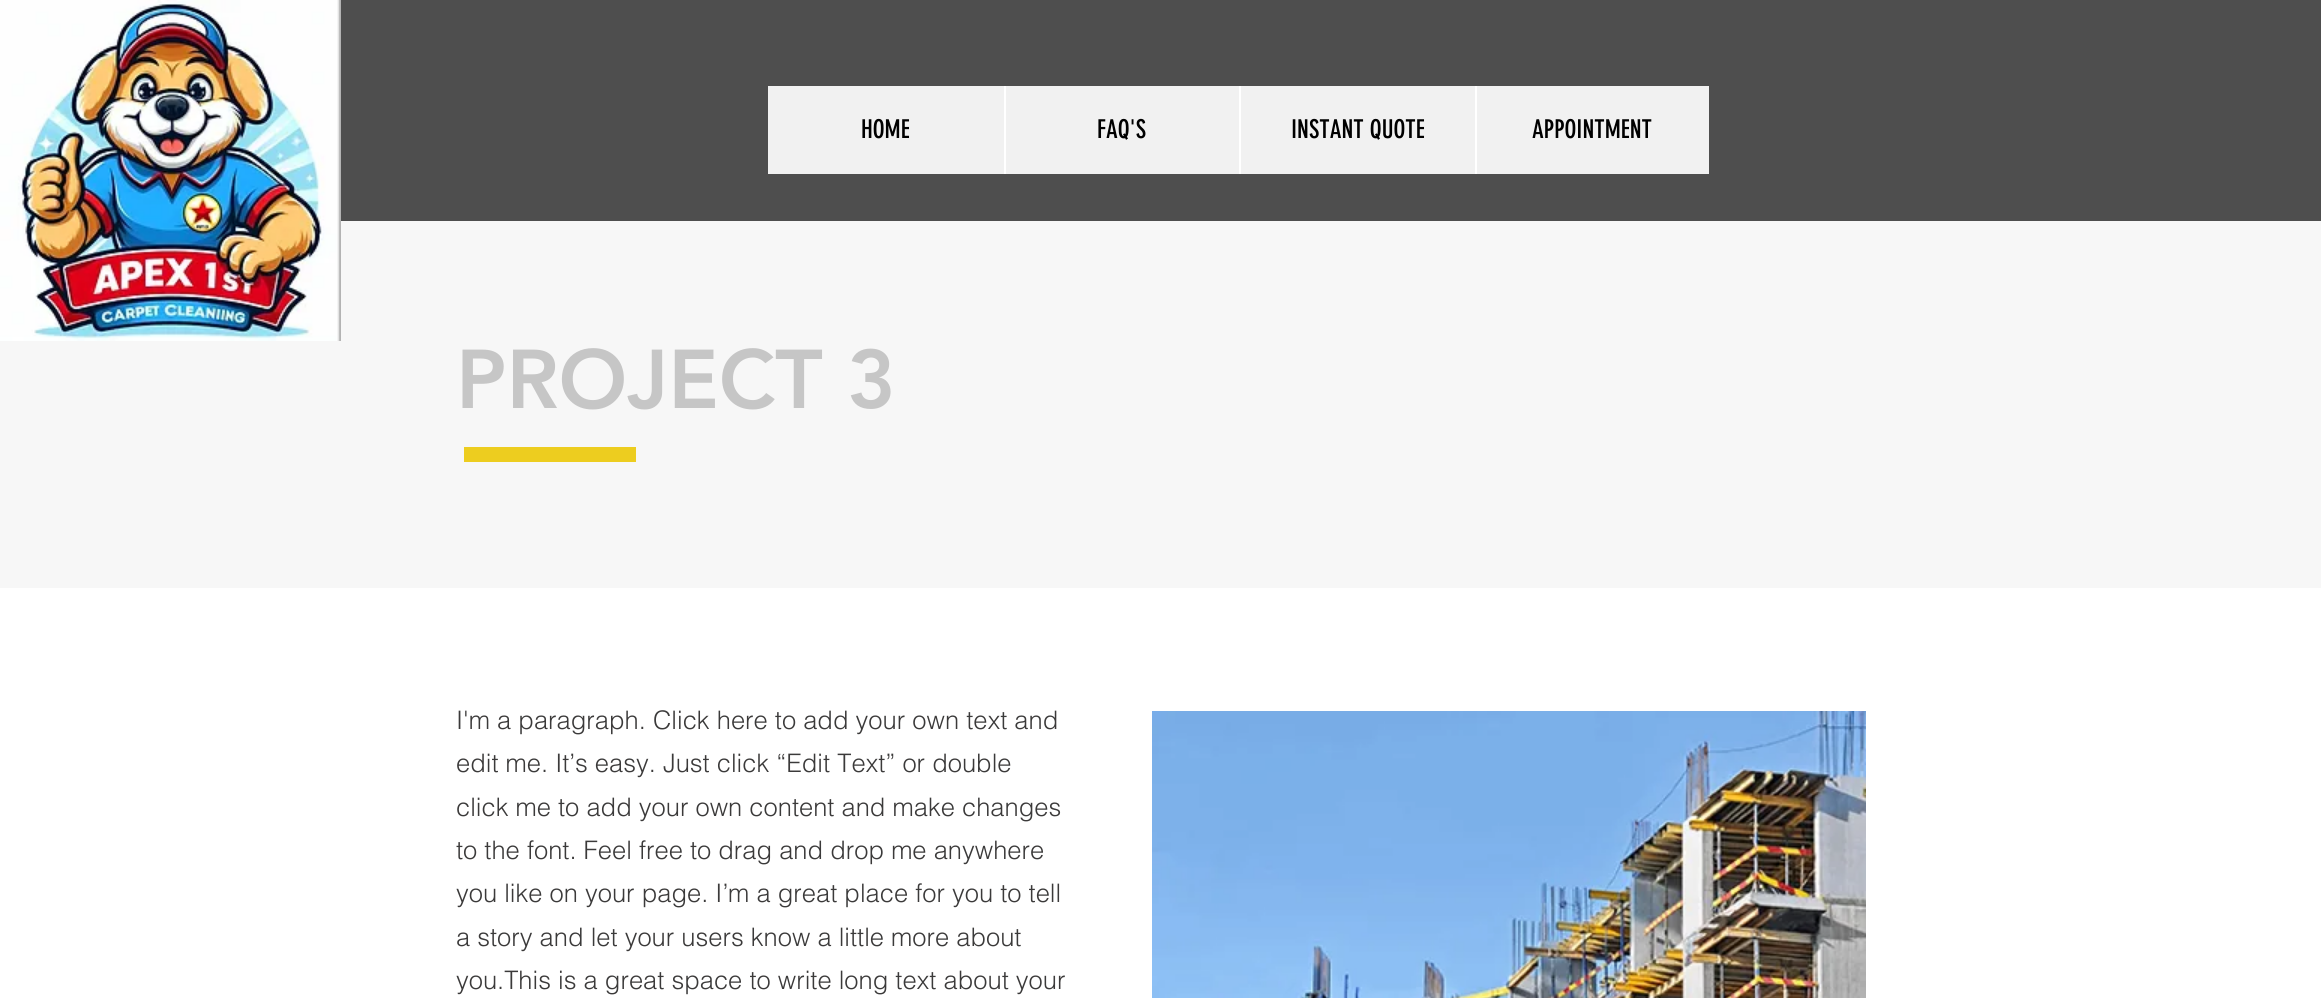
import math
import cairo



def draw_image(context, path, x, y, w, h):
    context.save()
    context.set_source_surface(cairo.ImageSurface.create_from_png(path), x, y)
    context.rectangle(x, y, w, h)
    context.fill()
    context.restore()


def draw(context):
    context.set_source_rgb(247 / 255, 247 / 255, 247 / 255)
    context.paint()
    draw_image(context, "images/1.png", 0, 0, 341, 341)
    context.set_source_rgb(78 / 255, 78 / 255, 78 / 255)
    context.rectangle(341, 0, 1980, 221)
    context.fill()
    context.set_source_rgb(241 / 255, 241 / 255, 241 / 255)
    context.rectangle(768, 86, 941, 88)
    context.fill()
    context.set_source_rgb(1, 1, 1)
    context.rectangle(1004, 86, 2, 88)
    context.fill()
    context.rectangle(1239, 86, 2, 88)
    context.fill()
    context.rectangle(1475, 86, 2, 88)
    context.fill()
    context.set_source_rgb(237 / 255, 205 / 255, 31 / 255)
    context.rectangle(464, 447, 172, 15)
    context.fill()
    context.set_source_rgb(1, 1, 1)
    context.rectangle(0, 588, 2321, 410)
    context.fill()
    draw_image(context, "images/2.png", 1152, 711, 714, 287)
    context.select_font_face("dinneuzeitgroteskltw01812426")
    context.set_font_size(25.5)
    context.set_source_rgb(0, 0, 0)
    context.move_to(861, 138)
    context.show_text("HOME")
    context.move_to(1097, 138)
    context.show_text("FAQ'S")
    context.move_to(1291, 138)
    context.show_text("INSTANT QUOTE")
    context.move_to(1532, 138)
    context.show_text("APPOINTMENT")
    context.select_font_face("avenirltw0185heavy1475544 Black")
    context.set_font_size(82.5)
    context.set_source_rgb(198 / 255, 198 / 255, 198 / 255)
    context.move_to(456, 408)
    context.show_text("PROJECT 3")
    context.select_font_face("helvetica Light")
    context.set_font_size(25.5)
    context.set_source_rgb(59 / 255, 58 / 255, 58 / 255)
    context.move_to(456, 729)
    context.show_text("I'm a paragraph. Click here to add your own text and")
    context.move_to(456, 772)
    context.show_text("edit me. It’s easy. Just click “Edit Text” or double")
    context.move_to(456, 816)
    context.show_text("click me to add your own content and make changes")
    context.move_to(456, 859)
    context.show_text("to the font. Feel free to drag and drop me anywhere")
    context.move_to(456, 902)
    context.show_text("you like on your page. I’m a great place for you to tell")
    context.move_to(456, 946)
    context.show_text("a story and let your users know a little more about")
    context.move_to(456, 989)
    context.show_text("you.This is a great space to write long text about your")


surface = cairo.ImageSurface(cairo.Format.RGB24, 2321, 998)
context = cairo.Context(surface)
options = cairo.FontOptions()
options.set_hint_metrics(cairo.HintMetrics.OFF)
options.set_hint_style(cairo.HintStyle.NONE)
context.set_font_options(options)
context.set_miter_limit(4)
draw(context)
surface.write_to_png("out.png")
